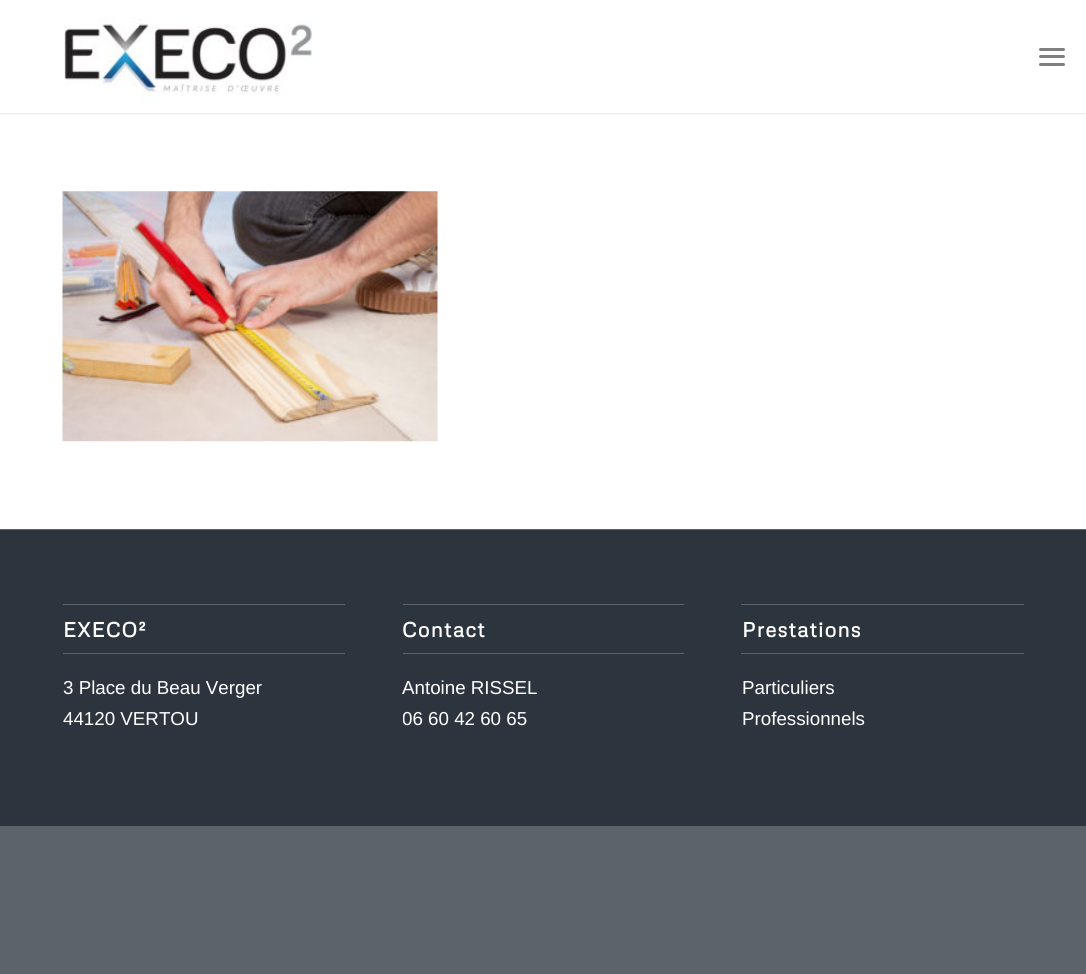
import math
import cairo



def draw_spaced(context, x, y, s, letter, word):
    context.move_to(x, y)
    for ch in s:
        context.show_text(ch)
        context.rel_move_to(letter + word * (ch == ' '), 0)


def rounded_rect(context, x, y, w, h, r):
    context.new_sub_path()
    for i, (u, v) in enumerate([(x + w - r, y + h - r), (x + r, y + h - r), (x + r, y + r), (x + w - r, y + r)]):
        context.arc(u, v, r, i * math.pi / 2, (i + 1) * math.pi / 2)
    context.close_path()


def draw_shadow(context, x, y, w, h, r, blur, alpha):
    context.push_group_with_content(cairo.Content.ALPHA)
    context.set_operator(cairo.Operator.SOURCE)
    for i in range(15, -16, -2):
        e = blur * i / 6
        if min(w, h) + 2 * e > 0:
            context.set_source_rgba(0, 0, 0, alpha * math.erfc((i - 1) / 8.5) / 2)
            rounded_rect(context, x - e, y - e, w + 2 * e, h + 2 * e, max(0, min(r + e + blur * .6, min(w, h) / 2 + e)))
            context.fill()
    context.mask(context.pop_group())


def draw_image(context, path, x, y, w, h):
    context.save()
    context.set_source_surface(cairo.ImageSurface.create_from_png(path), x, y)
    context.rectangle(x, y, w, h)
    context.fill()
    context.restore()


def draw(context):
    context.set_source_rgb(91 / 255, 100 / 255, 107 / 255)
    context.paint()
    context.set_source_rgb(1, 1, 1)
    context.rectangle(0, 113, 1086, 416)
    context.fill()
    context.set_source_rgb(0, 0, 0)
    draw_shadow(context, -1, -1, 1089, 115, 0, 1, 0.1)
    context.set_source_rgb(1, 1, 1)
    context.rectangle(0, 0, 1086, 113)
    context.fill()
    draw_image(context, "images/1.png", 64, 17, 249, 86)
    context.set_source_rgb(128 / 255, 128 / 255, 128 / 255)
    rounded_rect(context, 1039, 55, 26, 3, 1.5)
    context.fill()
    rounded_rect(context, 1039, 48, 26, 3, 1.5)
    context.fill()
    rounded_rect(context, 1039, 63, 26, 3, 1.5)
    context.fill()
    draw_image(context, "images/2.png", 62, 191, 376, 251)
    context.set_source_rgb(44 / 255, 53 / 255, 61 / 255)
    context.rectangle(0, 530, 1086, 296)
    context.fill()
    context.set_source_rgb(91 / 255, 100 / 255, 107 / 255)
    context.rectangle(63, 604, 282, 1)
    context.fill()
    context.rectangle(63, 653, 282, 1)
    context.fill()
    context.rectangle(403, 604, 281, 1)
    context.fill()
    context.rectangle(403, 653, 281, 1)
    context.fill()
    context.rectangle(741, 604, 283, 1)
    context.fill()
    context.rectangle(741, 653, 283, 1)
    context.fill()
    context.select_font_face("Metrophobic", cairo.FontSlant.NORMAL, cairo.FontWeight.BOLD)
    context.set_font_size(20.5)
    context.set_source_rgb(1, 1, 1)
    draw_spaced(context, 63, 637, "EXECO²", 1.25, 0)
    context.select_font_face("Liberation Sans")
    context.set_font_size(18.75)
    context.move_to(63, 694)
    context.show_text("3 Place du Beau Verger")
    context.move_to(63, 725)
    context.show_text("44120 VERTOU")
    context.select_font_face("Metrophobic", cairo.FontSlant.NORMAL, cairo.FontWeight.BOLD)
    context.set_font_size(20.5)
    draw_spaced(context, 402, 637, "Contact", 1.25, 0)
    context.select_font_face("Liberation Sans")
    context.set_font_size(18.75)
    context.move_to(402, 694)
    context.show_text("Antoine RISSEL")
    context.save()
    context.rectangle(403, 586, 281, 165)
    context.clip()
    context.move_to(402, 725)
    context.show_text("06 60 42 60 65")
    context.restore()
    context.select_font_face("Metrophobic", cairo.FontSlant.NORMAL, cairo.FontWeight.BOLD)
    context.set_font_size(20.5)
    draw_spaced(context, 742, 637, "Prestations", 1.25, 0)
    context.select_font_face("Liberation Sans")
    context.set_font_size(18.75)
    context.move_to(742, 694)
    context.show_text("Particuliers")
    context.move_to(742, 725)
    context.show_text("Professionnels")


surface = cairo.ImageSurface(cairo.Format.RGB24, 1086, 974)
context = cairo.Context(surface)
options = cairo.FontOptions()
options.set_hint_metrics(cairo.HintMetrics.OFF)
options.set_hint_style(cairo.HintStyle.NONE)
context.set_font_options(options)
context.set_miter_limit(4)
draw(context)
surface.write_to_png("out.png")
